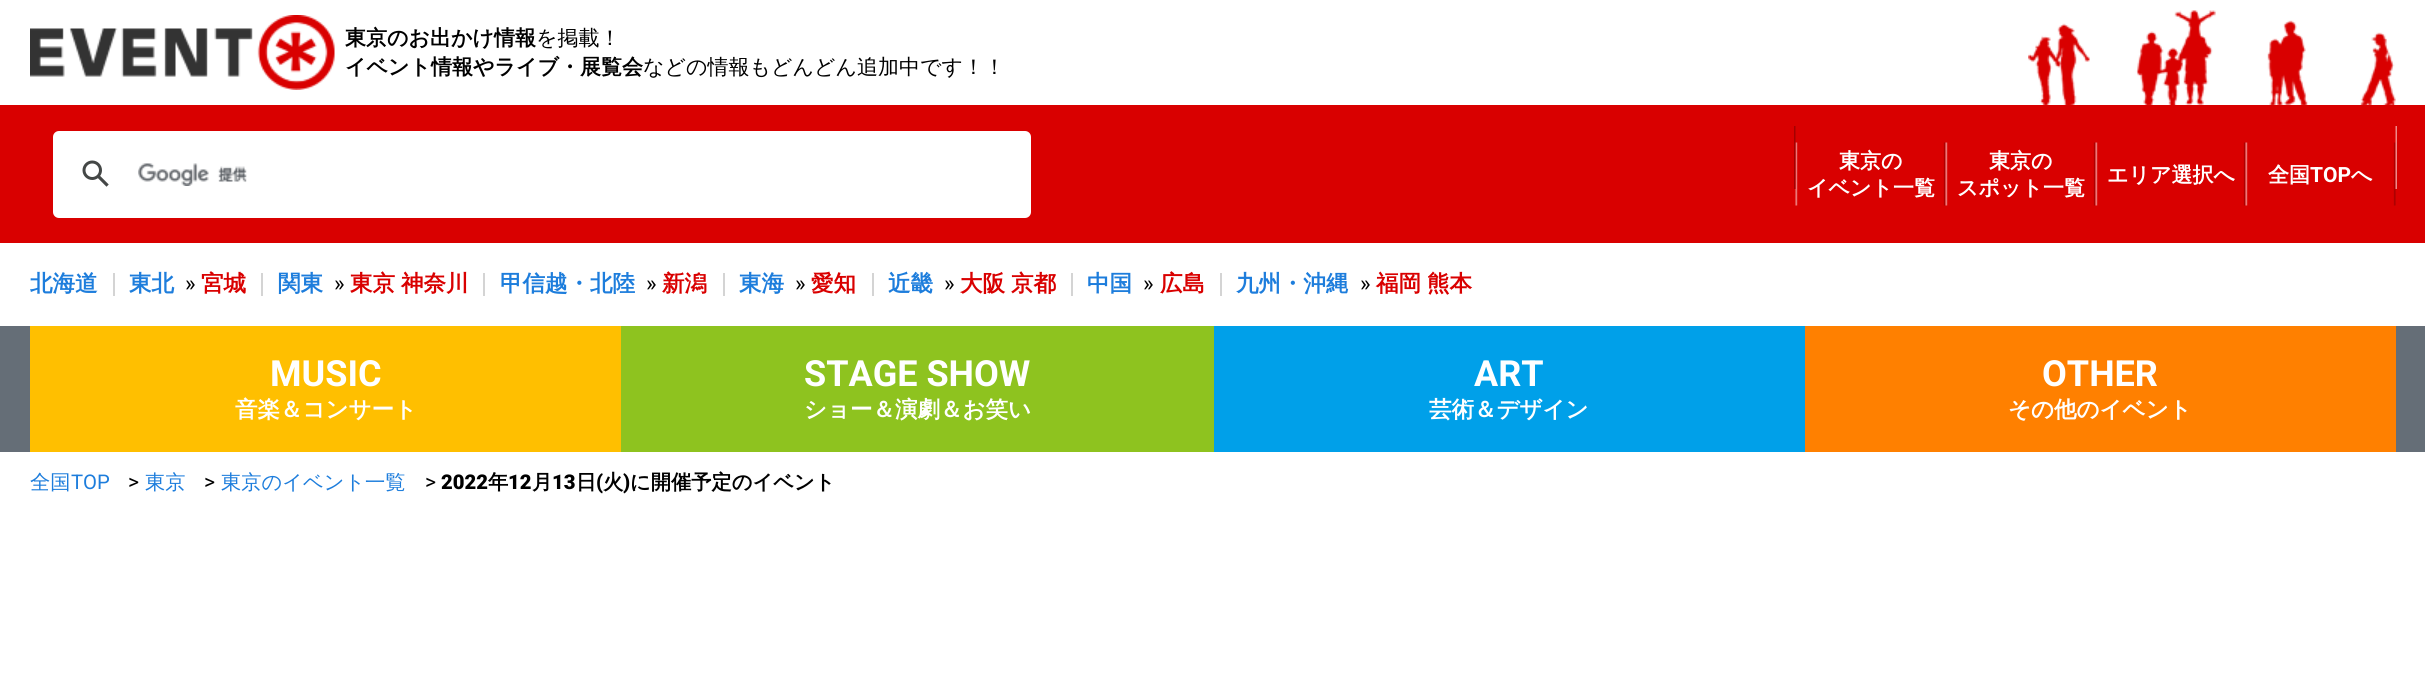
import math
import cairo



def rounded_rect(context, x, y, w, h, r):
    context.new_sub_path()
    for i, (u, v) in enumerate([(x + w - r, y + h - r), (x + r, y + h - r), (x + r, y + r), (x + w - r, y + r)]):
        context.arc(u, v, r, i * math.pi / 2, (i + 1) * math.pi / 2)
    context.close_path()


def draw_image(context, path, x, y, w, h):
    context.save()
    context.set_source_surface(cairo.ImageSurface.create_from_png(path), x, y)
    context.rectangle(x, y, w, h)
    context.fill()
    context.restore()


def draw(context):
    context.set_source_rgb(1, 1, 1)
    context.paint()
    draw_image(context, "images/1.png", 2028, 10, 368, 95)
    draw_image(context, "images/2.png", 30, 15, 305, 75)
    context.set_source_rgb(217 / 255, 0, 0)
    context.rectangle(0, 105, 2425, 138)
    context.fill()
    context.set_source_rgb(1, 1, 1)
    rounded_rect(context, 54, 132, 976, 85, 5)
    context.fill_preserve()
    context.stroke()
    draw_image(context, "images/3.png", 82, 160, 27, 27)
    draw_image(context, "images/4.png", 138, 163, 109, 23)
    draw_image(context, "images/5.png", 1795, 142, 151, 64)
    draw_image(context, "images/6.png", 1794, 126, 2, 63)
    draw_image(context, "images/7.png", 1945, 142, 151, 64)
    draw_image(context, "images/7.png", 2095, 142, 151, 64)
    draw_image(context, "images/7.png", 2245, 142, 151, 64)
    draw_image(context, "images/8.png", 2395, 126, 2, 63)
    context.set_source_rgb(212 / 255, 212 / 255, 212 / 255)
    context.rectangle(113, 273, 2, 23)
    context.fill()
    context.rectangle(261, 273, 2, 23)
    context.fill()
    context.rectangle(483, 273, 2, 23)
    context.fill()
    context.rectangle(723, 273, 2, 23)
    context.fill()
    context.rectangle(872, 273, 2, 23)
    context.fill()
    context.rectangle(1071, 273, 2, 23)
    context.fill()
    context.rectangle(1220, 273, 2, 23)
    context.fill()
    context.set_source_rgb(101 / 255, 110 / 255, 119 / 255)
    context.rectangle(0, 326, 2425, 126)
    context.fill()
    context.set_source_rgb(1, 191 / 255, 0)
    context.rectangle(30, 326, 591, 126)
    context.fill()
    context.set_source_rgb(142 / 255, 195 / 255, 31 / 255)
    context.rectangle(621, 326, 593, 126)
    context.fill()
    context.set_source_rgb(0, 160 / 255, 233 / 255)
    context.rectangle(1214, 326, 591, 126)
    context.fill()
    context.set_source_rgb(1, 128 / 255, 0)
    context.rectangle(1805, 326, 591, 126)
    context.fill()
    context.select_font_face("WenQuanYi Zen Hei", cairo.FontSlant.NORMAL, cairo.FontWeight.BOLD)
    context.set_font_size(21)
    context.set_source_rgb(0, 0, 0)
    context.move_to(345, 45)
    context.show_text("東京のお出かけ情報")
    context.select_font_face("WenQuanYi Zen Hei Medium")
    context.move_to(536, 45)
    context.show_text("を掲載！")
    context.select_font_face("WenQuanYi Zen Hei", cairo.FontSlant.NORMAL, cairo.FontWeight.BOLD)
    context.move_to(345, 74)
    context.show_text("イベント情報やライブ・展覧会")
    context.select_font_face("WenQuanYi Zen Hei Medium")
    context.move_to(643, 74)
    context.show_text("などの情報もどんどん追加中です！！")
    context.select_font_face("WenQuanYi Zen Hei", cairo.FontSlant.NORMAL, cairo.FontWeight.BOLD)
    context.set_source_rgb(1, 1, 1)
    context.move_to(1839, 168)
    context.show_text("東京の")
    context.move_to(1807, 195)
    context.show_text("イベント一覧")
    context.move_to(1989, 168)
    context.show_text("東京の")
    context.move_to(1957, 195)
    context.show_text("スポット一覧")
    context.move_to(2107, 182)
    context.show_text("エリア選択へ")
    context.move_to(2268, 182)
    context.show_text("全国")
    context.select_font_face("Roboto", cairo.FontSlant.NORMAL, cairo.FontWeight.BOLD)
    context.move_to(2310, 182)
    context.show_text("TOP")
    context.select_font_face("WenQuanYi Zen Hei", cairo.FontSlant.NORMAL, cairo.FontWeight.BOLD)
    context.move_to(2351, 182)
    context.show_text("へ")
    context.set_font_size(22.5)
    context.set_source_rgb(29 / 255, 125 / 255, 220 / 255)
    context.move_to(30, 291)
    context.show_text("北海道")
    context.move_to(129, 291)
    context.show_text("東北")
    context.select_font_face("Roboto")
    context.set_source_rgb(0, 0, 0)
    context.move_to(185, 291)
    context.show_text("»")
    context.select_font_face("WenQuanYi Zen Hei", cairo.FontSlant.NORMAL, cairo.FontWeight.BOLD)
    context.set_source_rgb(217 / 255, 0, 0)
    context.move_to(201, 291)
    context.show_text("宮城")
    context.set_source_rgb(29 / 255, 125 / 255, 220 / 255)
    context.move_to(278, 291)
    context.show_text("関東")
    context.select_font_face("Roboto")
    context.set_source_rgb(0, 0, 0)
    context.move_to(334, 291)
    context.show_text("»")
    context.select_font_face("WenQuanYi Zen Hei", cairo.FontSlant.NORMAL, cairo.FontWeight.BOLD)
    context.set_source_rgb(217 / 255, 0, 0)
    context.move_to(350, 291)
    context.show_text("東京")
    context.move_to(401, 291)
    context.show_text("神奈川")
    context.set_source_rgb(29 / 255, 125 / 255, 220 / 255)
    context.move_to(500, 291)
    context.show_text("甲信越・北陸")
    context.select_font_face("Roboto")
    context.set_source_rgb(0, 0, 0)
    context.move_to(646, 291)
    context.show_text("»")
    context.select_font_face("WenQuanYi Zen Hei", cairo.FontSlant.NORMAL, cairo.FontWeight.BOLD)
    context.set_source_rgb(217 / 255, 0, 0)
    context.move_to(662, 291)
    context.show_text("新潟")
    context.set_source_rgb(29 / 255, 125 / 255, 220 / 255)
    context.move_to(739, 291)
    context.show_text("東海")
    context.select_font_face("Roboto")
    context.set_source_rgb(0, 0, 0)
    context.move_to(795, 291)
    context.show_text("»")
    context.select_font_face("WenQuanYi Zen Hei", cairo.FontSlant.NORMAL, cairo.FontWeight.BOLD)
    context.set_source_rgb(217 / 255, 0, 0)
    context.move_to(811, 291)
    context.show_text("愛知")
    context.set_source_rgb(29 / 255, 125 / 255, 220 / 255)
    context.move_to(888, 291)
    context.show_text("近畿")
    context.select_font_face("Roboto")
    context.set_source_rgb(0, 0, 0)
    context.move_to(944, 291)
    context.show_text("»")
    context.select_font_face("WenQuanYi Zen Hei", cairo.FontSlant.NORMAL, cairo.FontWeight.BOLD)
    context.set_source_rgb(217 / 255, 0, 0)
    context.move_to(960, 291)
    context.show_text("大阪")
    context.move_to(1011, 291)
    context.show_text("京都")
    context.set_source_rgb(29 / 255, 125 / 255, 220 / 255)
    context.move_to(1087, 291)
    context.show_text("中国")
    context.select_font_face("Roboto")
    context.set_source_rgb(0, 0, 0)
    context.move_to(1143, 291)
    context.show_text("»")
    context.select_font_face("WenQuanYi Zen Hei", cairo.FontSlant.NORMAL, cairo.FontWeight.BOLD)
    context.set_source_rgb(217 / 255, 0, 0)
    context.move_to(1160, 291)
    context.show_text("広島")
    context.set_source_rgb(29 / 255, 125 / 255, 220 / 255)
    context.move_to(1236, 291)
    context.show_text("九州・沖縄")
    context.select_font_face("Roboto")
    context.set_source_rgb(0, 0, 0)
    context.move_to(1360, 291)
    context.show_text("»")
    context.select_font_face("WenQuanYi Zen Hei", cairo.FontSlant.NORMAL, cairo.FontWeight.BOLD)
    context.set_source_rgb(217 / 255, 0, 0)
    context.move_to(1376, 291)
    context.show_text("福岡")
    context.move_to(1427, 291)
    context.show_text("熊本")
    context.select_font_face("Roboto", cairo.FontSlant.NORMAL, cairo.FontWeight.BOLD)
    context.set_font_size(36)
    context.set_source_rgb(1, 1, 1)
    context.move_to(270, 386)
    context.show_text("MUSIC")
    context.select_font_face("WenQuanYi Zen Hei", cairo.FontSlant.NORMAL, cairo.FontWeight.BOLD)
    context.set_font_size(22.5)
    context.move_to(235, 417)
    context.show_text("音楽＆コンサート")
    context.select_font_face("Roboto", cairo.FontSlant.NORMAL, cairo.FontWeight.BOLD)
    context.set_font_size(36)
    context.move_to(804, 386)
    context.show_text("STAGE SHOW")
    context.select_font_face("WenQuanYi Zen Hei", cairo.FontSlant.NORMAL, cairo.FontWeight.BOLD)
    context.set_font_size(22.5)
    context.move_to(804, 417)
    context.show_text("ショー＆演劇＆お笑い")
    context.select_font_face("Roboto", cairo.FontSlant.NORMAL, cairo.FontWeight.BOLD)
    context.set_font_size(36)
    context.move_to(1474, 386)
    context.show_text("ART")
    context.select_font_face("WenQuanYi Zen Hei", cairo.FontSlant.NORMAL, cairo.FontWeight.BOLD)
    context.set_font_size(22.5)
    context.move_to(1429, 417)
    context.show_text("芸術＆デザイン")
    context.select_font_face("Roboto", cairo.FontSlant.NORMAL, cairo.FontWeight.BOLD)
    context.set_font_size(36)
    context.move_to(2042, 386)
    context.show_text("OTHER")
    context.select_font_face("WenQuanYi Zen Hei", cairo.FontSlant.NORMAL, cairo.FontWeight.BOLD)
    context.set_font_size(22.5)
    context.move_to(2008, 417)
    context.show_text("その他のイベント")
    context.select_font_face("WenQuanYi Zen Hei Medium")
    context.set_font_size(20.25)
    context.set_source_rgb(29 / 255, 125 / 255, 220 / 255)
    context.move_to(30, 489)
    context.show_text("全国")
    context.select_font_face("Roboto")
    context.move_to(71, 489)
    context.show_text("TOP")
    context.set_font_size(21)
    context.set_source_rgb(0, 0, 0)
    context.move_to(128, 489)
    context.show_text(">")
    context.select_font_face("WenQuanYi Zen Hei Medium")
    context.set_font_size(20.25)
    context.set_source_rgb(29 / 255, 125 / 255, 220 / 255)
    context.move_to(145, 489)
    context.show_text("東京")
    context.select_font_face("Roboto")
    context.set_font_size(21)
    context.set_source_rgb(0, 0, 0)
    context.move_to(204, 489)
    context.show_text(">")
    context.select_font_face("WenQuanYi Zen Hei Medium")
    context.set_font_size(20.25)
    context.set_source_rgb(29 / 255, 125 / 255, 220 / 255)
    context.move_to(221, 489)
    context.show_text("東京のイベント一覧")
    context.select_font_face("Roboto")
    context.set_font_size(21)
    context.set_source_rgb(0, 0, 0)
    context.move_to(425, 489)
    context.show_text(">")
    context.select_font_face("Roboto Black")
    context.set_font_size(20.25)
    context.move_to(441, 489)
    context.show_text("2022")
    context.select_font_face("WenQuanYi Zen Hei", cairo.FontSlant.NORMAL, cairo.FontWeight.BOLD)
    context.move_to(488, 489)
    context.show_text("年")
    context.select_font_face("Roboto Black")
    context.move_to(508, 489)
    context.show_text("12")
    context.select_font_face("WenQuanYi Zen Hei", cairo.FontSlant.NORMAL, cairo.FontWeight.BOLD)
    context.move_to(532, 489)
    context.show_text("月")
    context.select_font_face("Roboto Black")
    context.move_to(552, 489)
    context.show_text("13")
    context.select_font_face("WenQuanYi Zen Hei", cairo.FontSlant.NORMAL, cairo.FontWeight.BOLD)
    context.move_to(576, 489)
    context.show_text("日")
    context.select_font_face("Roboto Black")
    context.move_to(596, 489)
    context.show_text("(")
    context.select_font_face("WenQuanYi Zen Hei", cairo.FontSlant.NORMAL, cairo.FontWeight.BOLD)
    context.move_to(603, 489)
    context.show_text("火")
    context.select_font_face("Roboto Black")
    context.move_to(623, 489)
    context.show_text(")")
    context.select_font_face("WenQuanYi Zen Hei", cairo.FontSlant.NORMAL, cairo.FontWeight.BOLD)
    context.move_to(630, 489)
    context.show_text("に開催予定のイベント")


surface = cairo.ImageSurface(cairo.Format.RGB24, 2425, 698)
context = cairo.Context(surface)
options = cairo.FontOptions()
options.set_hint_metrics(cairo.HintMetrics.OFF)
options.set_hint_style(cairo.HintStyle.NONE)
context.set_font_options(options)
context.set_miter_limit(4)
draw(context)
surface.write_to_png("out.png")
